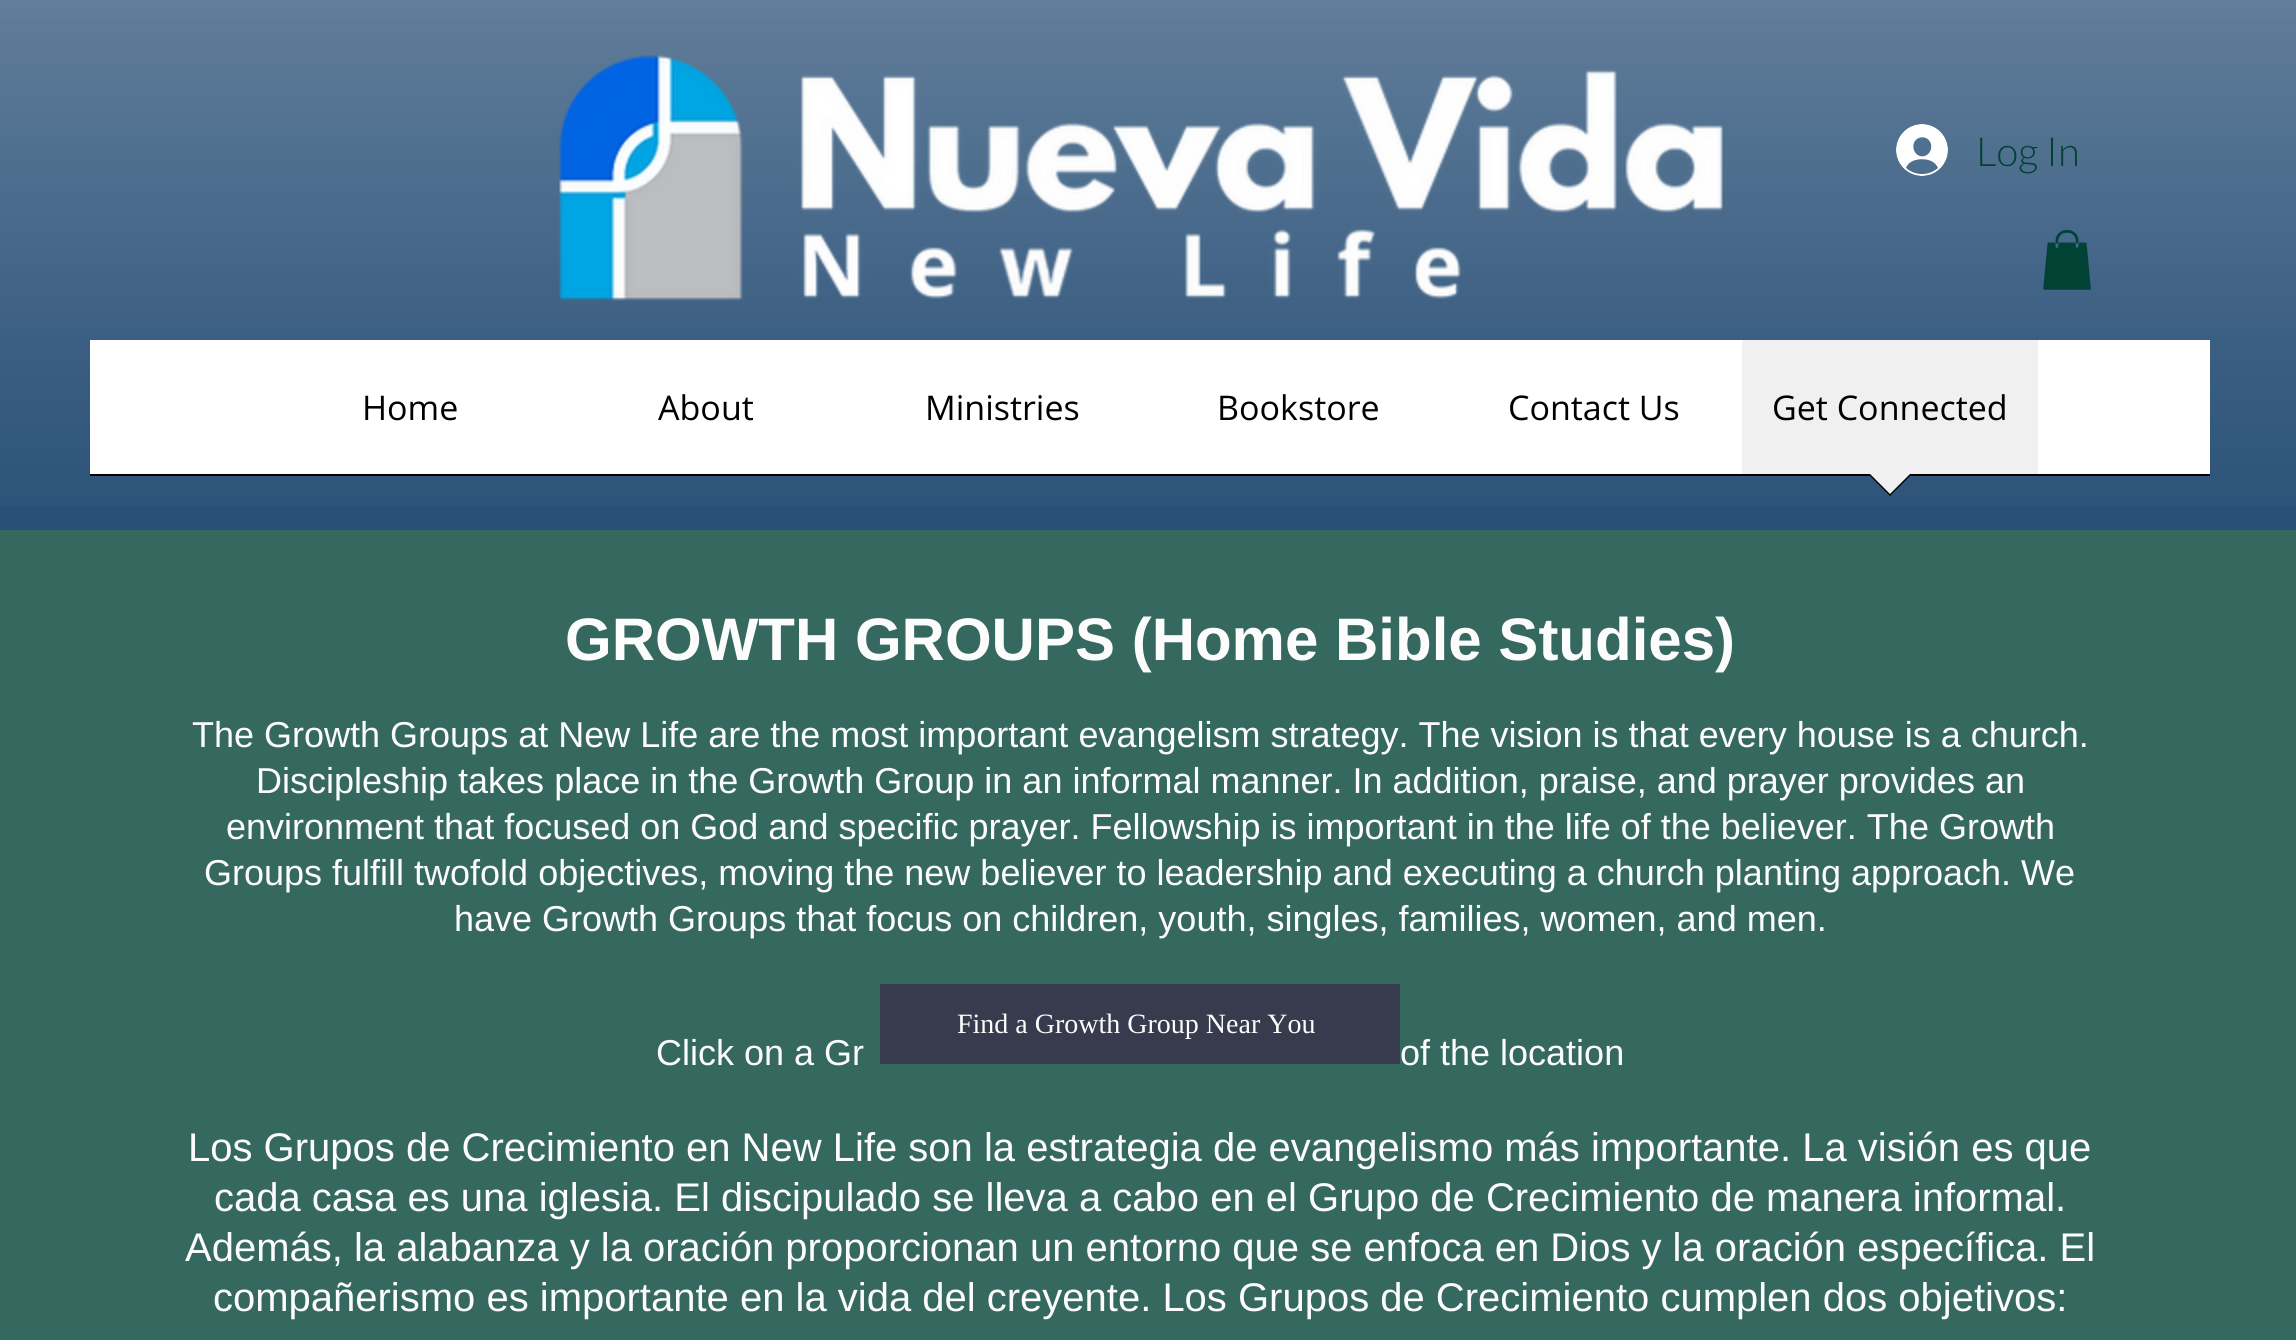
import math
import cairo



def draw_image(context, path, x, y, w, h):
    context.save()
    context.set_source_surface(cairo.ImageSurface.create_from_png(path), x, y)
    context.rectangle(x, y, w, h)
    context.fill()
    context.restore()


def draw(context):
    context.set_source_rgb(53 / 255, 104 / 255, 94 / 255)
    context.paint()
    context.set_source_rgb(41 / 255, 80 / 255, 119 / 255)
    context.rectangle(0, 0, 2296, 530)
    context.fill()
    draw_image(context, "images/1.png", 0, 0, 2296, 507)
    draw_image(context, "images/2.png", 559, 55, 1164, 246)
    draw_image(context, "images/3.png", 1896, 124, 52, 52)
    draw_image(context, "images/4.png", 2043, 230, 48, 60)
    context.set_source_rgb(1, 1, 1)
    context.rectangle(90, 340, 2120, 134)
    context.fill()
    context.set_source_rgb(0, 0, 0)
    context.rectangle(90, 474, 2120, 2)
    context.fill()
    context.set_source_rgb(240 / 255, 240 / 255, 240 / 255)
    context.rectangle(1742, 340, 296, 134)
    context.fill()
    context.set_source_rgb(0, 0, 0)
    context.new_path()
    context.move_to(1868, 474)
    context.line_to(1912, 474)
    context.line_to(1890, 496)
    context.close_path()
    context.fill()
    context.set_source_rgb(240 / 255, 240 / 255, 240 / 255)
    context.new_path()
    context.move_to(1870, 474)
    context.line_to(1910, 474)
    context.line_to(1890, 494)
    context.close_path()
    context.fill()
    context.set_source_rgb(55 / 255, 59 / 255, 77 / 255)
    context.rectangle(880, 984, 520, 80)
    context.fill()
    context.select_font_face("Lato Light")
    context.set_font_size(40)
    context.set_source_rgb(1 / 255, 66 / 255, 53 / 255)
    context.move_to(1976, 166)
    context.show_text("Log In")
    context.select_font_face("Open Sans")
    context.set_font_size(34)
    context.set_source_rgb(0, 0, 0)
    context.move_to(362, 420)
    context.show_text("Home")
    context.move_to(658, 420)
    context.show_text("About")
    context.move_to(925, 420)
    context.show_text("Ministries")
    context.move_to(1217, 420)
    context.show_text("Bookstore")
    context.move_to(1508, 420)
    context.show_text("Contact Us")
    context.move_to(1772, 420)
    context.show_text("Get Connected")
    context.select_font_face("Liberation Sans", cairo.FontSlant.NORMAL, cairo.FontWeight.BOLD)
    context.set_font_size(60)
    context.set_source_rgb(252 / 255, 252 / 255, 252 / 255)
    context.move_to(565, 660)
    context.show_text("GROWTH GROUPS (Home Bible Studies)")
    context.select_font_face("Liberation Sans")
    context.set_font_size(36)
    context.move_to(192, 747)
    context.show_text("The Growth Groups at New Life are the most important evangelism strategy. The vision is that every house is a church.")
    context.move_to(256, 793)
    context.show_text("Discipleship takes place in the Growth Group in an informal manner. In addition, praise, and prayer provides an")
    context.move_to(226, 839)
    context.show_text("environment that focused on God and specific prayer. Fellowship is important in the life of the believer. The Growth")
    context.move_to(204, 885)
    context.show_text("Groups fulfill twofold objectives, moving the new believer to leadership and executing a church planting approach. We")
    context.move_to(454, 931)
    context.show_text("have Growth Groups that focus on children, youth, singles, families, women, and men.")
    context.move_to(656, 1065)
    context.show_text("Click on a Gr")
    context.move_to(1400, 1065)
    context.show_text("of the location")
    context.set_font_size(40)
    context.move_to(188, 1161)
    context.show_text("Los Grupos de Crecimiento en New Life son la estrategia de evangelismo más importante. La visión es que")
    context.move_to(214, 1211)
    context.show_text("cada casa es una iglesia. El discipulado se lleva a cabo en el Grupo de Crecimiento de manera informal.")
    context.move_to(185, 1261)
    context.show_text("Además, la alabanza y la oración proporcionan un entorno que se enfoca en Dios y la oración específica. El")
    context.move_to(213, 1311)
    context.show_text("compañerismo es importante en la vida del creyente. Los Grupos de Crecimiento cumplen dos objetivos:")
    context.select_font_face("Liberation Serif")
    context.set_font_size(28)
    context.move_to(957, 1033)
    context.show_text("Find a Growth Group Near You")


surface = cairo.ImageSurface(cairo.Format.RGB24, 2296, 1340)
context = cairo.Context(surface)
options = cairo.FontOptions()
options.set_hint_metrics(cairo.HintMetrics.OFF)
options.set_hint_style(cairo.HintStyle.NONE)
context.set_font_options(options)
context.set_miter_limit(4)
draw(context)
surface.write_to_png("out.png")
